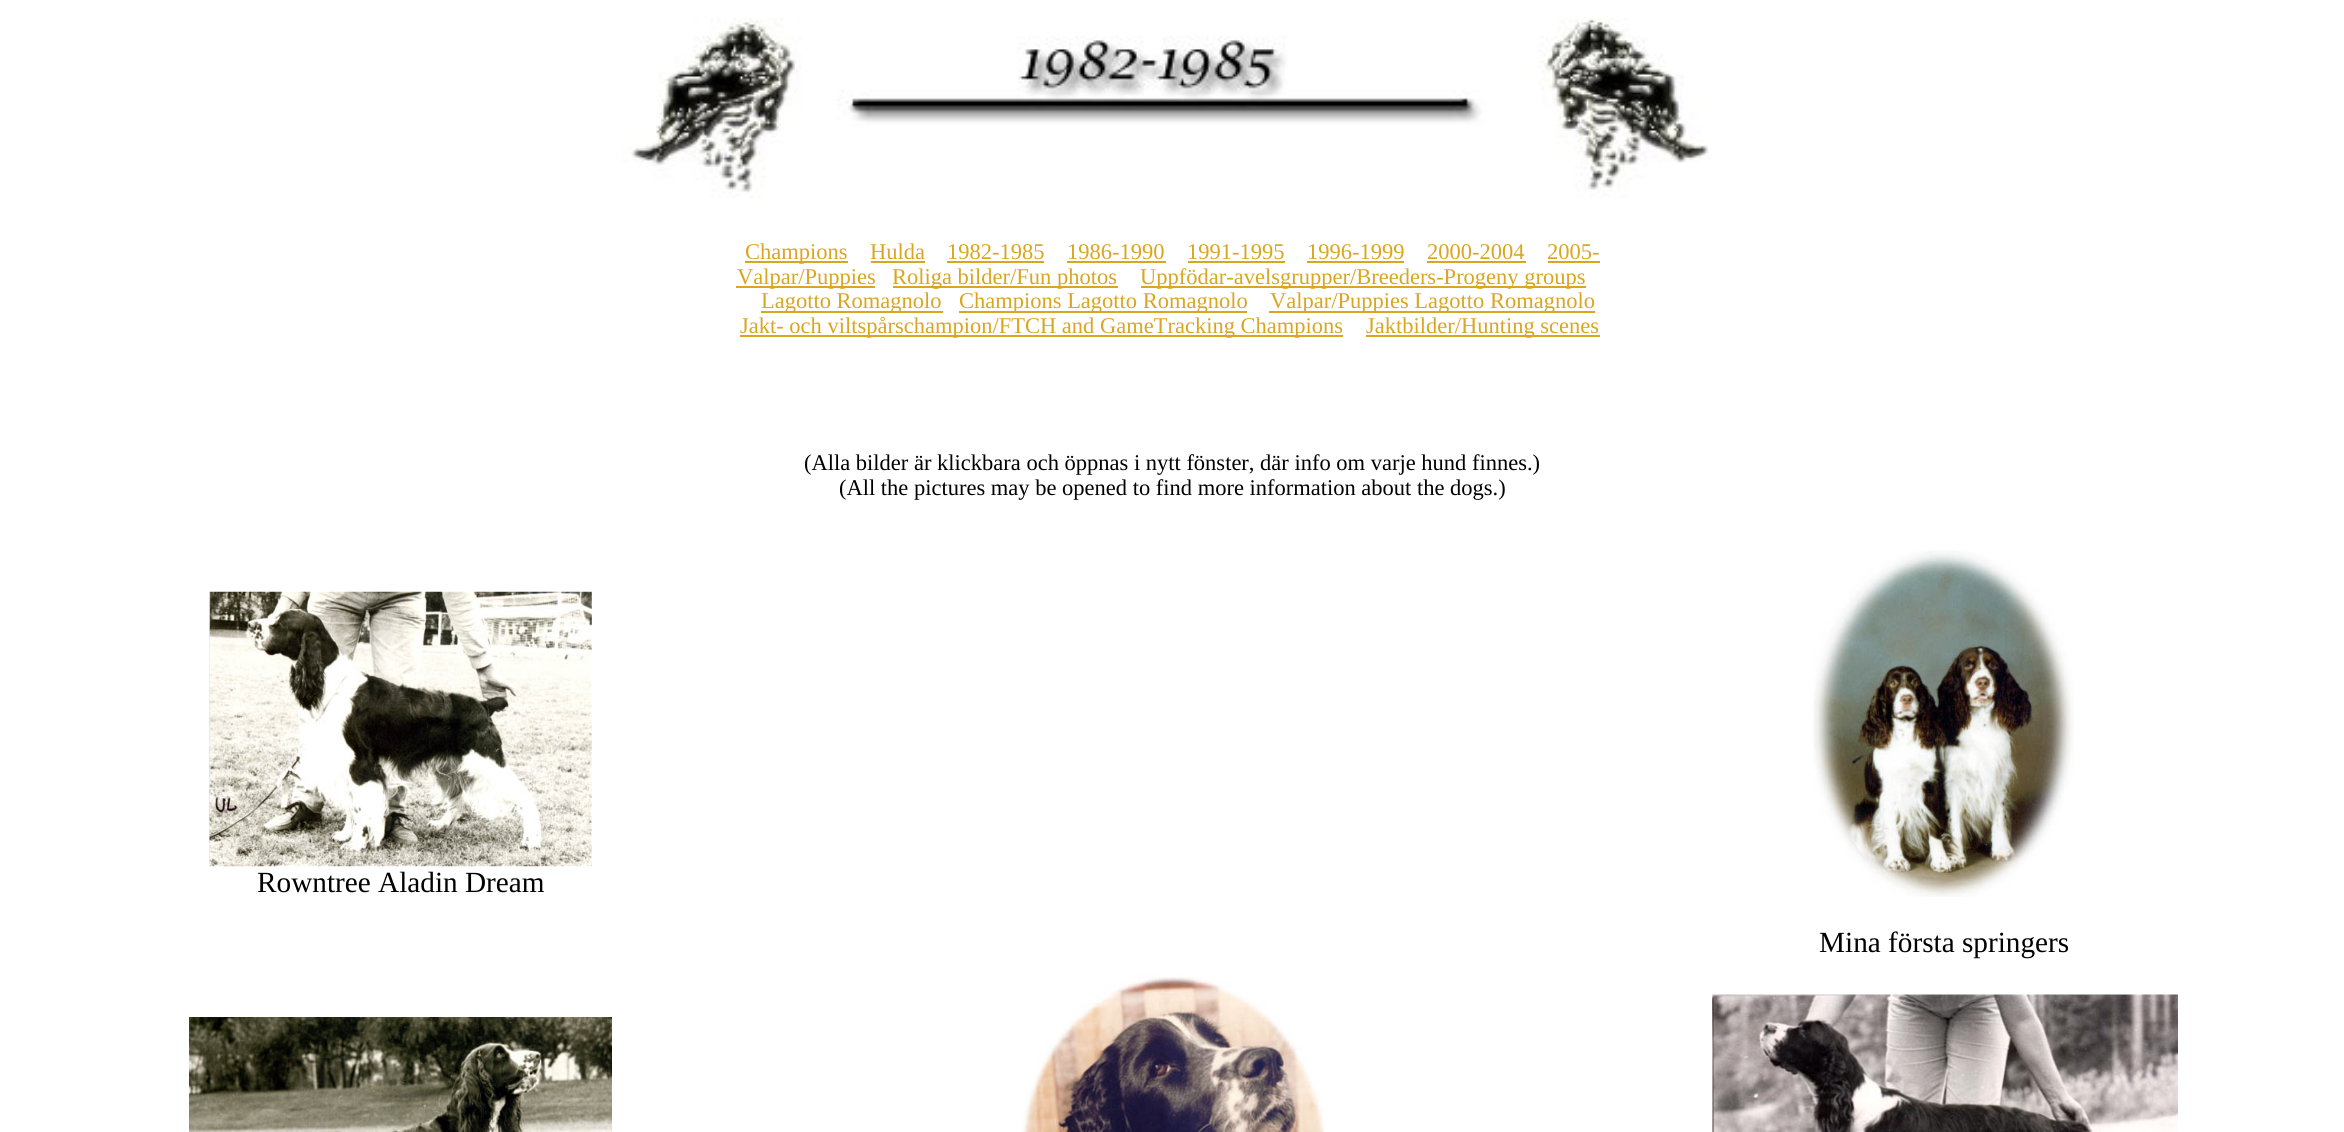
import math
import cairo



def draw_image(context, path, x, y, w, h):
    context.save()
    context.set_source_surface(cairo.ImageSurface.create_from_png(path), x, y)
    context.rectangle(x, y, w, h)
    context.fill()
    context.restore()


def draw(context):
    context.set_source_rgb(1, 1, 1)
    context.paint()
    draw_image(context, "images/1.png", 621, 18, 1090, 180)
    context.set_source_rgb(218 / 255, 165 / 255, 32 / 255)
    context.rectangle(745, 261, 103, 2)
    context.fill()
    context.rectangle(871, 261, 54, 2)
    context.fill()
    context.rectangle(947, 261, 97, 2)
    context.fill()
    context.rectangle(1067, 261, 99, 2)
    context.fill()
    context.rectangle(1188, 261, 97, 2)
    context.fill()
    context.rectangle(1307, 261, 97, 2)
    context.fill()
    context.rectangle(1427, 261, 99, 2)
    context.fill()
    context.rectangle(1548, 261, 52, 2)
    context.fill()
    context.rectangle(736, 286, 139, 2)
    context.fill()
    context.rectangle(893, 286, 225, 2)
    context.fill()
    context.rectangle(1141, 286, 445, 2)
    context.fill()
    context.rectangle(761, 311, 182, 2)
    context.fill()
    context.rectangle(959, 311, 288, 2)
    context.fill()
    context.rectangle(1269, 311, 326, 2)
    context.fill()
    context.rectangle(740, 335, 603, 2)
    context.fill()
    context.rectangle(1366, 335, 234, 2)
    context.fill()
    draw_image(context, "images/2.png", 209, 591, 383, 276)
    draw_image(context, "images/3.png", 1813, 550, 261, 347)
    draw_image(context, "images/4.png", 189, 1017, 423, 115)
    draw_image(context, "images/5.png", 1021, 974, 304, 158)
    draw_image(context, "images/6.png", 1712, 994, 466, 138)
    context.select_font_face("Liberation Serif")
    context.set_font_size(22.5)
    context.move_to(745, 259)
    context.show_text("Champions")
    context.move_to(870, 259)
    context.show_text("Hulda")
    context.move_to(947, 259)
    context.show_text("1982-1985")
    context.move_to(1067, 259)
    context.show_text("1986-1990")
    context.move_to(1187, 259)
    context.show_text("1991-1995")
    context.move_to(1307, 259)
    context.show_text("1996-1999")
    context.move_to(1427, 259)
    context.show_text("2000-2004")
    context.move_to(1547, 259)
    context.show_text("2005-")
    context.move_to(737, 284)
    context.show_text("Valpar/Puppies")
    context.move_to(892, 284)
    context.show_text("Roliga bilder/Fun photos")
    context.move_to(1140, 284)
    context.show_text("Uppfödar-avelsgrupper/Breeders-Progeny groups")
    context.move_to(761, 308)
    context.show_text("Lagotto Romagnolo")
    context.move_to(959, 308)
    context.show_text("Champions Lagotto Romagnolo")
    context.move_to(1270, 308)
    context.show_text("Valpar/Puppies Lagotto Romagnolo")
    context.move_to(740, 333)
    context.show_text("Jakt- och viltspårschampion/FTCH and GameTracking Champions")
    context.move_to(1366, 333)
    context.show_text("Jaktbilder/Hunting scenes")
    context.set_source_rgb(0, 0, 0)
    context.move_to(804, 470)
    context.show_text("(Alla bilder är klickbara och öppnas i nytt fönster, där info om varje hund finnes.)")
    context.move_to(839, 495)
    context.show_text("(All the pictures may be opened to find more information about the dogs.)")
    context.set_font_size(29.25)
    context.move_to(257, 892)
    context.show_text("Rowntree Aladin Dream")
    context.move_to(1819, 952)
    context.show_text("Mina första springers")


surface = cairo.ImageSurface(cairo.Format.RGB24, 2344, 1132)
context = cairo.Context(surface)
options = cairo.FontOptions()
options.set_hint_metrics(cairo.HintMetrics.OFF)
options.set_hint_style(cairo.HintStyle.NONE)
context.set_font_options(options)
context.set_miter_limit(4)
draw(context)
surface.write_to_png("out.png")
